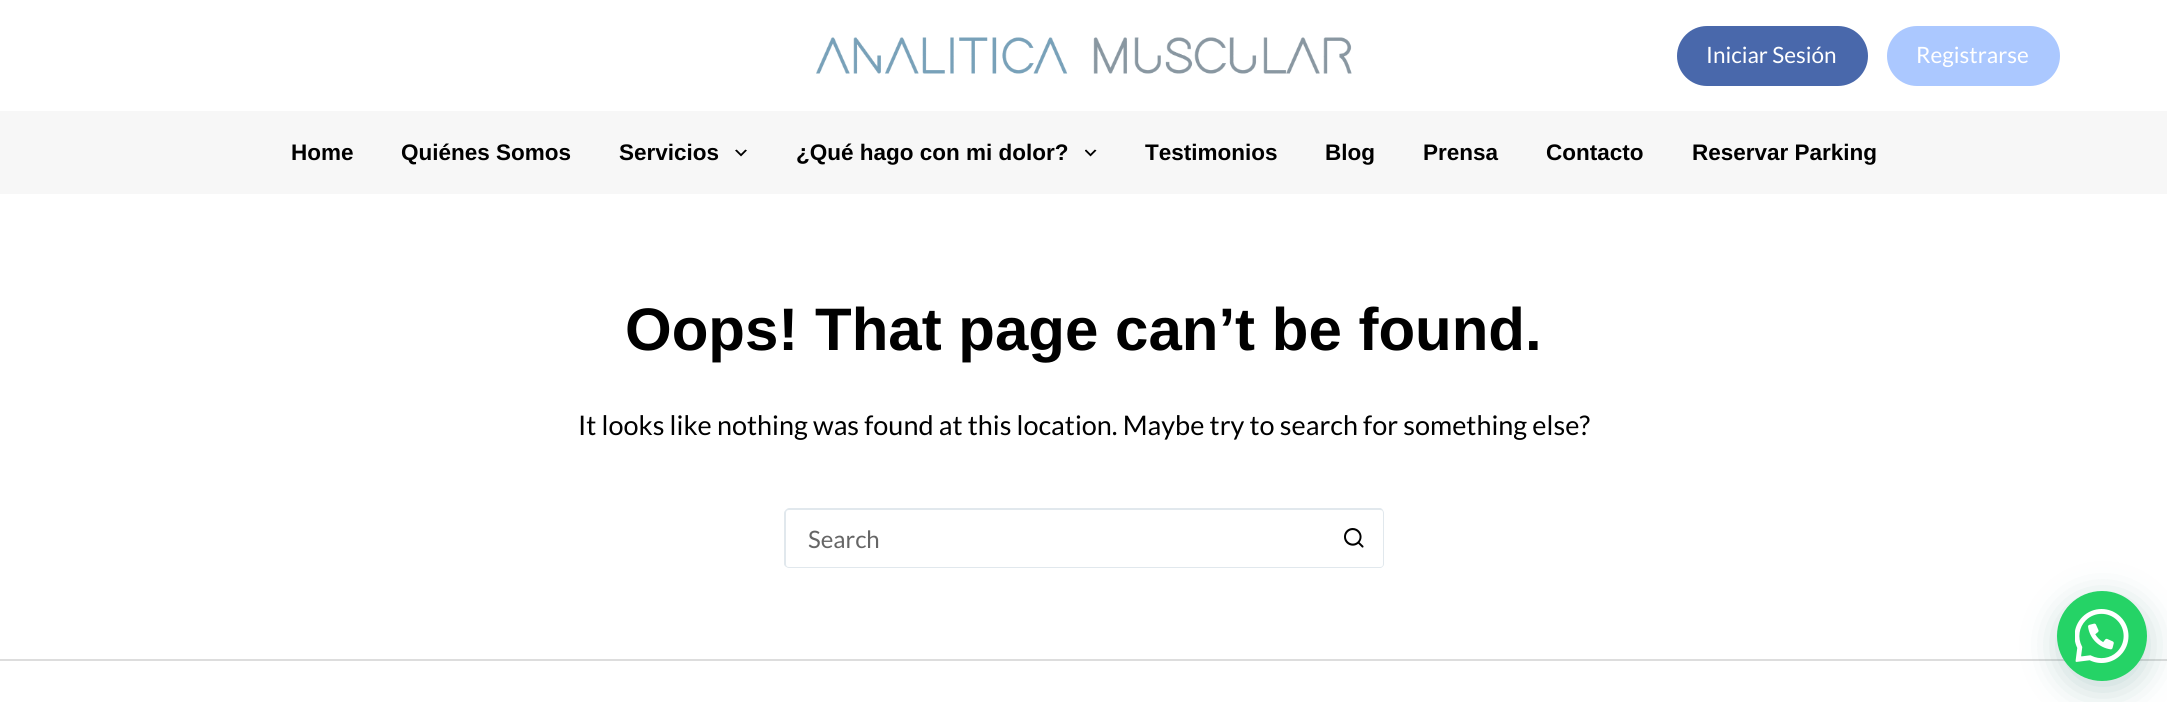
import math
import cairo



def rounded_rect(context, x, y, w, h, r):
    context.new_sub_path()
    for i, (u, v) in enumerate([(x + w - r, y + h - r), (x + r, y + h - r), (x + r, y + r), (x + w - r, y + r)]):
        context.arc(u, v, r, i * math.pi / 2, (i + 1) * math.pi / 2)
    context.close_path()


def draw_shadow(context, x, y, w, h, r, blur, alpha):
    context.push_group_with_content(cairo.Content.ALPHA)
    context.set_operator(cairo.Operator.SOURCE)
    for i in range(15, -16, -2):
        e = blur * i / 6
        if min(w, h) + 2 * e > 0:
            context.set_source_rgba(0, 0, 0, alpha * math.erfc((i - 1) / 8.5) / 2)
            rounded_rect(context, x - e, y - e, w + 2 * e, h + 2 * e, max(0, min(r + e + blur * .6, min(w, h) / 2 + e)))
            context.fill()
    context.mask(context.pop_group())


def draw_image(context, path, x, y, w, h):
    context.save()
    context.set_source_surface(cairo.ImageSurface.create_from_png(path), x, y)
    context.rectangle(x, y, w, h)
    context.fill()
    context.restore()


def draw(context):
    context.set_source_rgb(1, 1, 1)
    context.paint()
    draw_image(context, "images/1.png", 816, 37, 536, 37)
    context.set_source_rgb(73 / 255, 104 / 255, 171 / 255)
    rounded_rect(context, 1677, 26, 191, 60, 30)
    context.fill()
    context.set_source_rgb(171 / 255, 200 / 255, 1)
    rounded_rect(context, 1887, 26, 173, 60, 30)
    context.fill()
    context.set_source_rgb(247 / 255, 247 / 255, 247 / 255)
    context.rectangle(0, 111, 2167, 83)
    context.fill()
    draw_image(context, "images/2.png", 735, 149, 12, 8)
    draw_image(context, "images/3.png", 1085, 149, 12, 8)
    context.set_source_rgb(225 / 255, 232 / 255, 237 / 255)
    context.set_fill_rule(cairo.FillRule.EVEN_ODD)
    context.new_path()
    context.move_to(789, 508)
    context.line_to(1324, 508)
    context.line_to(1324, 568)
    context.line_to(789, 568)
    context.curve_to(787, 568, 784, 566, 784, 564)
    context.line_to(784, 513)
    context.curve_to(784, 511, 787, 508, 789, 508)
    context.close_path()
    context.move_to(789, 510)
    context.line_to(1324, 510)
    context.line_to(1324, 567)
    context.line_to(789, 567)
    context.curve_to(787, 567, 786, 566, 786, 564)
    context.line_to(786, 513)
    context.curve_to(786, 511, 787, 510, 789, 510)
    context.close_path()
    context.fill()
    context.new_path()
    context.move_to(1324, 508)
    context.line_to(1380, 508)
    context.curve_to(1382, 508, 1384, 511, 1384, 513)
    context.line_to(1384, 564)
    context.curve_to(1384, 566, 1382, 568, 1380, 568)
    context.line_to(1324, 568)
    context.close_path()
    context.move_to(1324, 510)
    context.line_to(1380, 510)
    context.curve_to(1382, 510, 1383, 511, 1383, 513)
    context.line_to(1383, 564)
    context.curve_to(1383, 566, 1382, 567, 1380, 567)
    context.line_to(1324, 567)
    context.close_path()
    context.fill()
    draw_image(context, "images/4.png", 1344, 528, 20, 20)
    context.set_source_rgb(221 / 255, 221 / 255, 221 / 255)
    context.rectangle(0, 659, 2167, 2)
    context.fill()
    context.set_source_rgb(7 / 255, 94 / 255, 84 / 255)
    draw_shadow(context, 2058, 600, 90, 90, 45, 18, 0.24)
    context.set_source_rgb(37 / 255, 211 / 255, 102 / 255)
    context.arc(2102, 636, 45, 0, 2 * math.pi)
    context.fill()
    draw_image(context, "images/5.png", 2075, 609, 54, 54)
    context.select_font_face("Lato")
    context.set_font_size(22.5)
    context.set_source_rgb(1, 1, 1)
    context.move_to(1706, 63)
    context.show_text("Iniciar Sesión")
    context.move_to(1916, 63)
    context.show_text("Registrarse")
    context.select_font_face("Liberation Sans", cairo.FontSlant.NORMAL, cairo.FontWeight.BOLD)
    context.set_source_rgb(0, 0, 0)
    context.move_to(291, 160)
    context.show_text("Home")
    context.move_to(401, 160)
    context.show_text("Quiénes Somos")
    context.move_to(619, 160)
    context.show_text("Servicios")
    context.move_to(796, 160)
    context.show_text("¿Qué hago con mi dolor?")
    context.move_to(1145, 160)
    context.show_text("Testimonios")
    context.move_to(1325, 160)
    context.show_text("Blog")
    context.move_to(1423, 160)
    context.show_text("Prensa")
    context.move_to(1546, 160)
    context.show_text("Contacto")
    context.move_to(1692, 160)
    context.show_text("Reservar Parking")
    context.set_font_size(60)
    context.move_to(625, 350)
    context.show_text("Oops! That page can’t be found.")
    context.select_font_face("Lato")
    context.set_font_size(27)
    context.move_to(578, 435)
    context.show_text("It looks like nothing was found at this location. Maybe try to search for something else?")
    context.set_font_size(24)
    context.set_source_rgb(102 / 255, 102 / 255, 102 / 255)
    context.move_to(808, 548)
    context.show_text("Search")


surface = cairo.ImageSurface(cairo.Format.RGB24, 2167, 702)
context = cairo.Context(surface)
options = cairo.FontOptions()
options.set_hint_metrics(cairo.HintMetrics.OFF)
options.set_hint_style(cairo.HintStyle.NONE)
context.set_font_options(options)
context.set_miter_limit(4)
draw(context)
surface.write_to_png("out.png")
